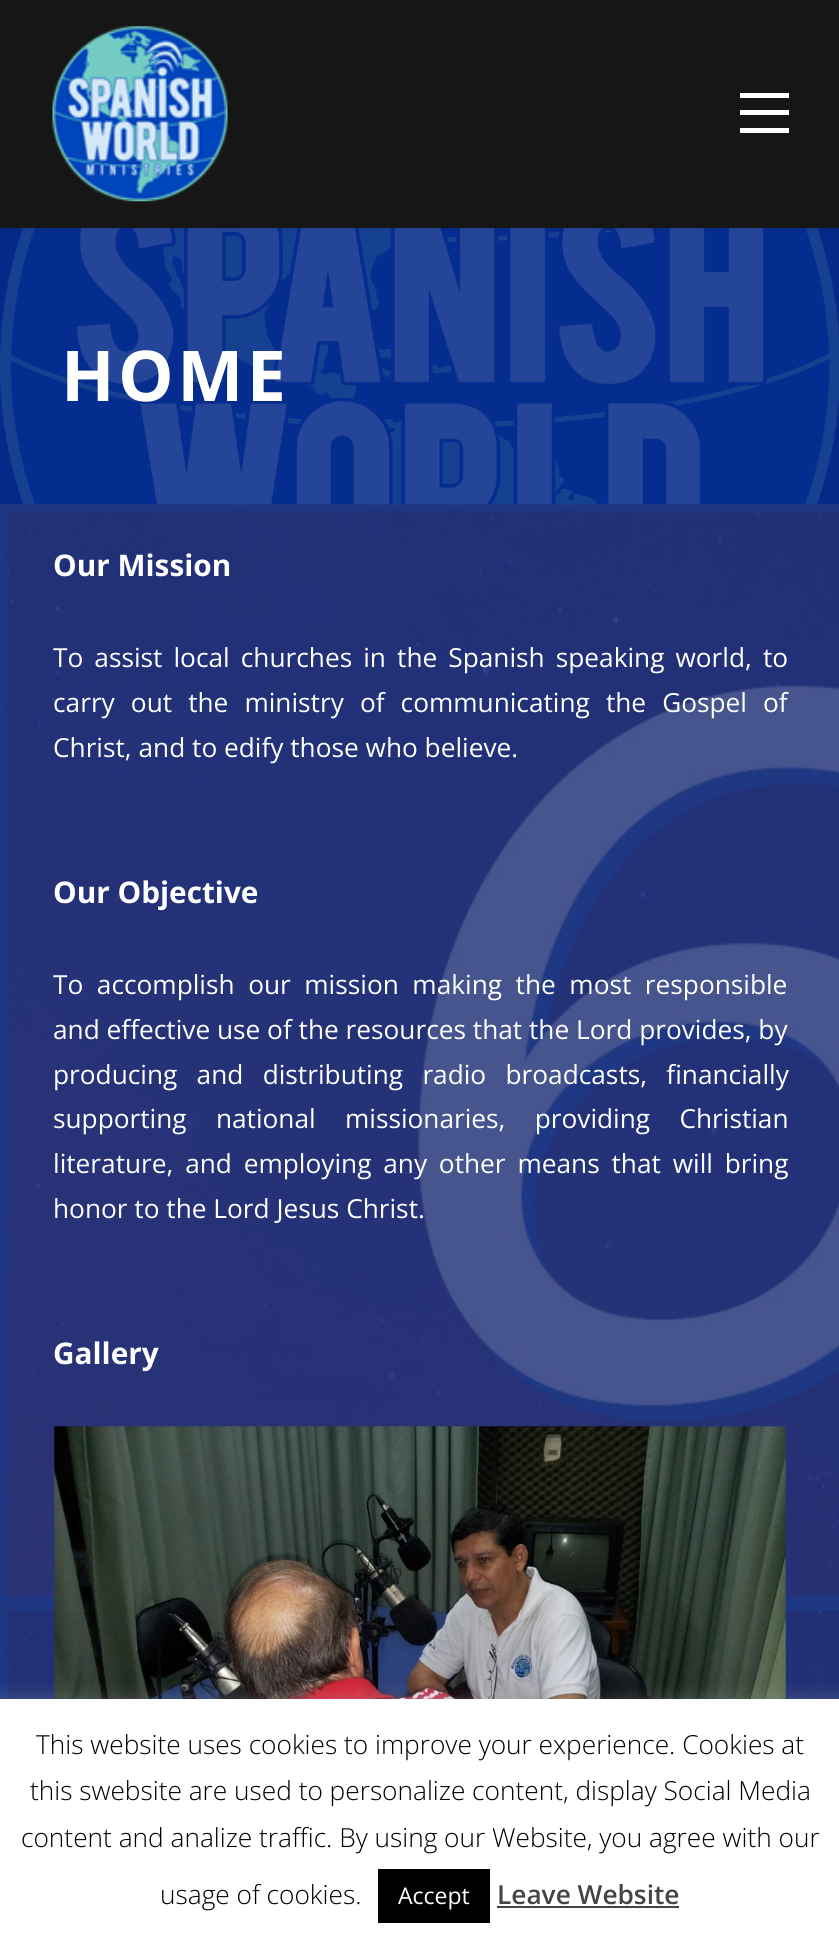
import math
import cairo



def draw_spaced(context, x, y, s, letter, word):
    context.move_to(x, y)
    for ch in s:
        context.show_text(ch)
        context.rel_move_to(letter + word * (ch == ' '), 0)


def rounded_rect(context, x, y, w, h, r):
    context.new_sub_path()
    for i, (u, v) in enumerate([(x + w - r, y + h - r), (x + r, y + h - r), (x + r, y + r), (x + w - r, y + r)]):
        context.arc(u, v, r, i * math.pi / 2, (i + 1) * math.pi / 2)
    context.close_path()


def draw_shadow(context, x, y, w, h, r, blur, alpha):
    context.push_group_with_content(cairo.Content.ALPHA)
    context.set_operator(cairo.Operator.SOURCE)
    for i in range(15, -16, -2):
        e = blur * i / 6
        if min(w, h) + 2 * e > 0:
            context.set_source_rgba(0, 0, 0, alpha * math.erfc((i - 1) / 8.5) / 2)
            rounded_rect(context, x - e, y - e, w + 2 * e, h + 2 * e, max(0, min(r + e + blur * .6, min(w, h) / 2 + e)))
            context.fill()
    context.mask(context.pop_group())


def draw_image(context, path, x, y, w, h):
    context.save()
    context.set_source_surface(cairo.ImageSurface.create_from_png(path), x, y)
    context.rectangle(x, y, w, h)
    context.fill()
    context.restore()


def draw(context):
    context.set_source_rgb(6 / 255, 40 / 255, 135 / 255)
    context.paint()
    draw_image(context, "images/2.png", 0, 228, 839, 276)
    context.set_source_rgb(0, 0, 0)
    draw_shadow(context, 0, 2, 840, 227, 0, 2, 0.1)
    context.set_source_rgb(22 / 255, 22 / 255, 22 / 255)
    context.rectangle(0, 0, 839, 228)
    context.fill()
    draw_image(context, "images/1.png", 52, 26, 176, 176)
    context.set_source_rgb(1, 1, 1)
    context.rectangle(740, 93, 49, 5)
    context.fill()
    context.rectangle(740, 110, 49, 5)
    context.fill()
    context.rectangle(740, 128, 49, 5)
    context.fill()
    context.set_source_rgb(36 / 255, 53 / 255, 122 / 255)
    context.rectangle(0, 504, 839, 1195)
    context.fill()
    draw_image(context, "images/3.png", 0, 504, 839, 1195)
    draw_image(context, "images/4.png", 54, 1426, 732, 273)
    context.set_source_rgb(172 / 255, 171 / 255, 171 / 255)
    draw_shadow(context, 0, 1698, 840, 245, 0, 9, 0.3)
    context.set_source_rgb(1, 1, 1)
    context.rectangle(0, 1699, 839, 245)
    context.fill()
    context.set_source_rgb(0, 0, 0)
    context.rectangle(378, 1869, 112, 54)
    context.fill()
    context.set_source_rgb(68 / 255, 68 / 255, 68 / 255)
    context.rectangle(497, 1906, 182, 2)
    context.fill()
    context.select_font_face("Open Sans", cairo.FontSlant.NORMAL, cairo.FontWeight.BOLD)
    context.set_font_size(70)
    context.set_source_rgb(1, 1, 1)
    draw_spaced(context, 61, 401, "HOME", 3.5, 0)
    context.set_font_size(29.75)
    context.move_to(53, 576)
    context.show_text("Our Mission")
    context.select_font_face("Open Sans")
    context.set_font_size(26.25)
    draw_spaced(context, 53, 667, "To assist local churches in the Spanish speaking world, to", 0, 4.25)
    draw_spaced(context, 53, 712, "carry out the ministry of communicating the Gospel of", 0, 9.25)
    context.move_to(53, 757)
    context.show_text("Christ, and to edify those who believe.")
    context.select_font_face("Open Sans", cairo.FontSlant.NORMAL, cairo.FontWeight.BOLD)
    context.set_font_size(29.75)
    context.move_to(53, 903)
    context.show_text("Our Objective")
    context.select_font_face("Open Sans")
    context.set_font_size(26.25)
    draw_spaced(context, 53, 994, "To accomplish our mission making the most responsible", 0, 6.75)
    context.move_to(53, 1039)
    context.show_text("and effective use of the resources that the Lord provides, by")
    draw_spaced(context, 53, 1084, "producing and distributing radio broadcasts, financially", 0, 12.5)
    draw_spaced(context, 53, 1128, "supporting national missionaries, providing Christian", 0, 22.5)
    draw_spaced(context, 53, 1173, "literature, and employing any other means that will bring", 0, 5)
    context.move_to(53, 1218)
    context.show_text("honor to the Lord Jesus Christ.")
    context.select_font_face("Open Sans", cairo.FontSlant.NORMAL, cairo.FontWeight.BOLD)
    context.set_font_size(29.75)
    context.move_to(53, 1364)
    context.show_text("Gallery")
    context.select_font_face("Open Sans Light")
    context.set_font_size(26.25)
    context.set_source_rgb(0, 0, 0)
    context.move_to(36, 1754)
    context.show_text("This website uses cookies to improve your experience. Cookies at")
    context.move_to(30, 1800)
    context.show_text("this swebsite are used to personalize content, display Social Media")
    context.move_to(21, 1847)
    context.show_text("content and analize traffic. By using our Website, you agree with our")
    context.move_to(160, 1904)
    context.show_text("usage of cookies.")
    context.select_font_face("Open Sans")
    context.set_font_size(23)
    context.set_source_rgb(1, 1, 1)
    context.move_to(398, 1904)
    context.show_text("Accept")
    context.select_font_face("Open Sans SemiBold")
    context.set_font_size(26.25)
    context.set_source_rgb(68 / 255, 68 / 255, 68 / 255)
    context.move_to(497, 1904)
    context.show_text("Leave Website")


surface = cairo.ImageSurface(cairo.Format.RGB24, 839, 1944)
context = cairo.Context(surface)
options = cairo.FontOptions()
options.set_hint_metrics(cairo.HintMetrics.OFF)
options.set_hint_style(cairo.HintStyle.NONE)
context.set_font_options(options)
context.set_miter_limit(4)
draw(context)
surface.write_to_png("out.png")
